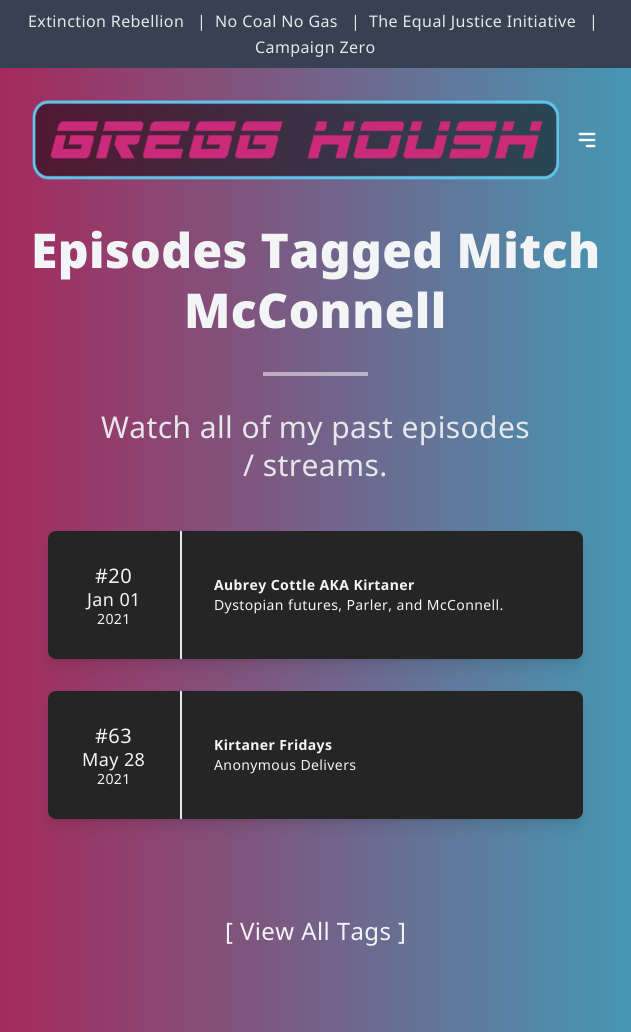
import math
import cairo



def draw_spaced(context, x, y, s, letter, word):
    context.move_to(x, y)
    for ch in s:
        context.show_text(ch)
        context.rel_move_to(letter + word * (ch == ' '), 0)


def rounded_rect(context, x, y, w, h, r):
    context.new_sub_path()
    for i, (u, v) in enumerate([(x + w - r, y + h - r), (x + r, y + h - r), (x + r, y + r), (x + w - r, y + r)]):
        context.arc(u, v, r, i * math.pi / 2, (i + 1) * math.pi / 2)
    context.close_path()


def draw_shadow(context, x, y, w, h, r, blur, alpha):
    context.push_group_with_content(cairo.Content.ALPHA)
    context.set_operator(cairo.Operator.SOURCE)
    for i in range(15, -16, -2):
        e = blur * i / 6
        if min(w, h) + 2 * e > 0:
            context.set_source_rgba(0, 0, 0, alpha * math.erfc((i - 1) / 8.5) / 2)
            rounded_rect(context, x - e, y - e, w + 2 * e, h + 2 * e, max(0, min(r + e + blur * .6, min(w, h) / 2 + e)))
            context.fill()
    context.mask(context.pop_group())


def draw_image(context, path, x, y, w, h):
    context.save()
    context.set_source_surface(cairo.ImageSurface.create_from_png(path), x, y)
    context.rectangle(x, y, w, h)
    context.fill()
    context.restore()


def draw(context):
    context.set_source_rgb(1, 1, 1)
    context.paint()
    gradient = cairo.LinearGradient(0, 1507, 631, 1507)
    gradient.add_color_stop_rgba(0, 164 / 255, 42 / 255, 92 / 255, 1)
    gradient.add_color_stop_rgba(1, 69 / 255, 151 / 255, 180 / 255, 1)
    context.set_source(gradient)
    context.rectangle(0, 68, 631, 964)
    context.fill()
    gradient = cairo.LinearGradient(0, 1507, 631, 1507)
    gradient.add_color_stop_rgba(0, 210 / 255, 149 / 255, 174 / 255, 1)
    gradient.add_color_stop_rgba(1, 162 / 255, 203 / 255, 218 / 255, 1)
    context.set_source(gradient)
    context.rectangle(263, 372, 105, 4)
    context.fill()
    context.set_source_rgb(55 / 255, 65 / 255, 81 / 255)
    context.rectangle(0, 0, 631, 68)
    context.fill()
    draw_image(context, "images/1.png", 32, 100, 527, 80)
    draw_image(context, "images/2.png", 578, 132, 18, 16)
    context.set_source_rgb(0, 0, 0)
    draw_shadow(context, 52, 539, 527, 120, 4, 3, 0.1)
    draw_shadow(context, 51, 544, 529, 122, 5, 7.5, 0.1)
    context.set_source_rgb(37 / 255, 37 / 255, 37 / 255)
    rounded_rect(context, 48, 531, 535, 128, 8)
    context.fill()
    context.set_source_rgb(229 / 255, 231 / 255, 235 / 255)
    context.rectangle(180, 531, 2, 128)
    context.fill()
    context.set_source_rgb(0, 0, 0)
    draw_shadow(context, 52, 699, 527, 120, 4, 3, 0.1)
    draw_shadow(context, 51, 704, 529, 122, 5, 7.5, 0.1)
    context.set_source_rgb(37 / 255, 37 / 255, 37 / 255)
    rounded_rect(context, 48, 691, 535, 128, 8)
    context.fill()
    context.set_source_rgb(229 / 255, 231 / 255, 235 / 255)
    context.rectangle(180, 691, 2, 128)
    context.fill()
    context.select_font_face("Noto Sans")
    context.set_font_size(16)
    draw_spaced(context, 28, 27, "Extinction Rebellion", 0.4, 0)
    draw_spaced(context, 197, 27, "|", 0.4, 0)
    draw_spaced(context, 215, 27, "No Coal No Gas", 0.4, 0)
    draw_spaced(context, 351, 27, "|", 0.4, 0)
    draw_spaced(context, 369, 27, "The Equal Justice Initiative", 0.4, 0)
    draw_spaced(context, 589, 27, "|", 0.4, 0)
    draw_spaced(context, 255, 53, "Campaign Zero", 0.4, 0)
    context.select_font_face("Noto Sans Black")
    context.set_font_size(48)
    context.set_source_rgb(243 / 255, 244 / 255, 246 / 255)
    draw_spaced(context, 31, 268, "Episodes Tagged Mitch", 0.4, 0)
    draw_spaced(context, 184, 328, "McConnell", 0.4, 0)
    context.select_font_face("Noto Sans")
    context.set_font_size(30)
    context.set_source_rgb(229 / 255, 231 / 255, 235 / 255)
    draw_spaced(context, 101, 438, "Watch all of my past episodes", 0.4, 0)
    draw_spaced(context, 243, 476, "/ streams.", 0.4, 0)
    context.set_font_size(20)
    context.set_source_rgb(243 / 255, 244 / 255, 246 / 255)
    draw_spaced(context, 95, 583, "#20", 0.4, 0)
    context.set_font_size(18)
    draw_spaced(context, 87, 606, "Jan 01", 0.4, 0)
    context.set_font_size(14)
    draw_spaced(context, 97, 624, "2021", 0.4, 0)
    context.select_font_face("Noto Sans", cairo.FontSlant.NORMAL, cairo.FontWeight.BOLD)
    draw_spaced(context, 214, 590, "Aubrey Cottle AKA Kirtaner", 0.4, 0)
    context.select_font_face("Noto Sans")
    draw_spaced(context, 214, 610, "Dystopian futures, Parler, and McConnell.", 0.4, 0)
    context.set_font_size(20)
    draw_spaced(context, 95, 743, "#63", 0.4, 0)
    context.set_font_size(18)
    draw_spaced(context, 82, 766, "May 28", 0.4, 0)
    context.set_font_size(14)
    draw_spaced(context, 97, 784, "2021", 0.4, 0)
    context.select_font_face("Noto Sans", cairo.FontSlant.NORMAL, cairo.FontWeight.BOLD)
    draw_spaced(context, 214, 750, "Kirtaner Fridays", 0.4, 0)
    context.select_font_face("Noto Sans")
    draw_spaced(context, 214, 770, "Anonymous Delivers", 0.4, 0)
    context.set_font_size(24)
    draw_spaced(context, 225, 940, "[ View All Tags ]", 0.4, 0)


surface = cairo.ImageSurface(cairo.Format.RGB24, 631, 1032)
context = cairo.Context(surface)
options = cairo.FontOptions()
options.set_hint_metrics(cairo.HintMetrics.OFF)
options.set_hint_style(cairo.HintStyle.NONE)
context.set_font_options(options)
context.set_miter_limit(4)
draw(context)
surface.write_to_png("out.png")
